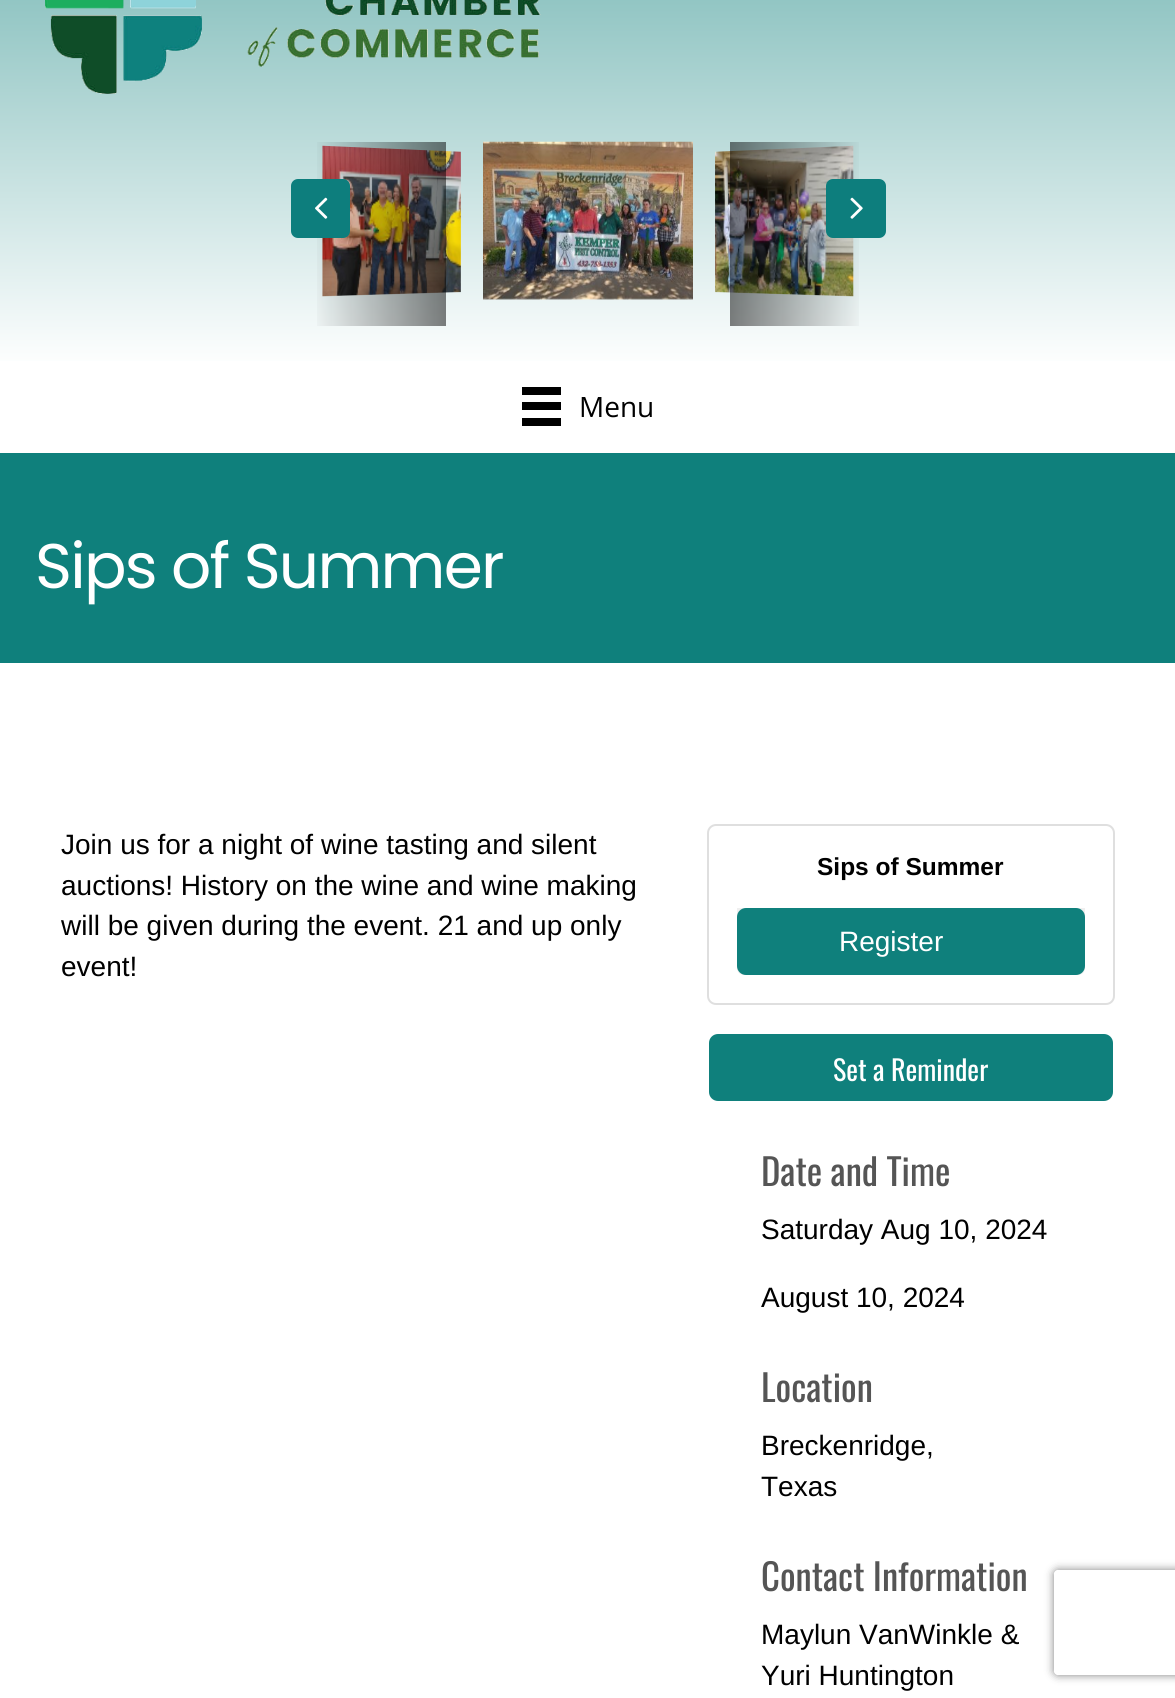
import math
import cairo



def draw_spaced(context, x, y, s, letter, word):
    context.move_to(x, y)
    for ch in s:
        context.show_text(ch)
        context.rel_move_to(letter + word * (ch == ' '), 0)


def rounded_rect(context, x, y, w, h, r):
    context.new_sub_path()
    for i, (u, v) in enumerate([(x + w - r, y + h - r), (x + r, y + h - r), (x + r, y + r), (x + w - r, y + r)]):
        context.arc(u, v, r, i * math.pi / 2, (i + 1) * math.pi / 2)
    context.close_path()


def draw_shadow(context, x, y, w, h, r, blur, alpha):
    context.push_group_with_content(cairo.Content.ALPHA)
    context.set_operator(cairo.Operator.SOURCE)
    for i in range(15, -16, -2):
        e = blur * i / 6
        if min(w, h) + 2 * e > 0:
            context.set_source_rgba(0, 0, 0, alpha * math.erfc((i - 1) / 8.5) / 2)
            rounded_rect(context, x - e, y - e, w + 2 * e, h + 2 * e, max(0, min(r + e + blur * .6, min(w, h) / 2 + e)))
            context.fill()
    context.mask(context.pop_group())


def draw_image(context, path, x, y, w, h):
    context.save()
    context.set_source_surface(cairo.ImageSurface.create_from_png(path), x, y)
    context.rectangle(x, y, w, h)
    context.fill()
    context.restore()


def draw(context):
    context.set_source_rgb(1, 1, 1)
    context.paint()
    gradient = cairo.LinearGradient(588, 369, 588, -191)
    gradient.add_color_stop_rgba(0, 1, 1, 1, 1)
    gradient.add_color_stop_rgba(1, 90 / 255, 168 / 255, 165 / 255, 1)
    context.set_source(gradient)
    context.rectangle(0, 0, 1175, 361)
    context.fill()
    draw_image(context, "images/1.png", 45, 0, 496, 94)
    draw_image(context, "images/2.png", 322, 145, 139, 152)
    gradient = cairo.LinearGradient(445, 234, 311, 234)
    gradient.add_color_stop_rgba(0, 0, 0, 0, 0.5)
    gradient.add_color_stop_rgba(1, 0, 0, 0, 0)
    context.set_source(gradient)
    context.rectangle(317, 142, 129, 184)
    context.fill()
    draw_image(context, "images/3.png", 483, 141, 210, 159)
    draw_image(context, "images/4.png", 715, 145, 139, 152)
    gradient = cairo.LinearGradient(731, 234, 865, 234)
    gradient.add_color_stop_rgba(0, 0, 0, 0, 0.5)
    gradient.add_color_stop_rgba(1, 0, 0, 0, 0)
    context.set_source(gradient)
    context.rectangle(730, 142, 129, 184)
    context.fill()
    context.set_source_rgb(13 / 255, 126 / 255, 125 / 255)
    rounded_rect(context, 292, 180, 57, 57, 6)
    context.fill_preserve()
    context.stroke()
    draw_image(context, "images/5.png", 315, 197, 13, 22)
    rounded_rect(context, 827, 180, 58, 57, 6)
    context.fill_preserve()
    context.stroke()
    draw_image(context, "images/6.png", 850, 197, 13, 22)
    context.set_source_rgb(0, 0, 0)
    context.rectangle(522, 387, 39, 8)
    context.fill()
    context.rectangle(522, 402, 39, 8)
    context.fill()
    context.rectangle(522, 418, 39, 8)
    context.fill()
    context.set_source_rgb(15 / 255, 128 / 255, 124 / 255)
    context.rectangle(0, 453, 1175, 210)
    context.fill()
    rounded_rect(context, 708, 825, 406, 179, 8)
    context.set_source_rgb(223 / 255, 223 / 255, 223 / 255)
    context.stroke()
    context.set_source_rgb(239 / 255, 239 / 255, 239 / 255)
    context.new_path()
    context.move_to(737, 908)
    context.line_to(1085, 908)
    context.line_to(1085, 968)
    context.curve_to(1085, 972, 1082, 975, 1078, 975)
    context.line_to(744, 975)
    context.curve_to(740, 975, 737, 972, 737, 968)
    context.close_path()
    context.fill()
    context.set_source_rgb(15 / 255, 128 / 255, 124 / 255)
    rounded_rect(context, 738, 909, 346, 65, 8)
    context.fill_preserve()
    context.stroke()
    rounded_rect(context, 710, 1035, 402, 65, 8)
    context.fill_preserve()
    context.stroke()
    context.save()
    context.set_fill_rule(cairo.FillRule.EVEN_ODD)
    context.new_path()
    context.move_to(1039, 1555)
    context.line_to(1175, 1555)
    context.line_to(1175, 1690)
    context.line_to(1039, 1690)
    context.close_path()
    context.move_to(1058, 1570)
    context.line_to(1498, 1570)
    context.curve_to(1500, 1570, 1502, 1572, 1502, 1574)
    context.line_to(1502, 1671)
    context.curve_to(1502, 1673, 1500, 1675, 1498, 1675)
    context.line_to(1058, 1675)
    context.curve_to(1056, 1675, 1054, 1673, 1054, 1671)
    context.line_to(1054, 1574)
    context.curve_to(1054, 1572, 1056, 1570, 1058, 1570)
    context.close_path()
    context.clip()
    context.set_source_rgb(128 / 255, 128 / 255, 128 / 255)
    draw_shadow(context, 1054, 1570, 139, 105, 4, 4.5, 1)
    context.restore()
    context.select_font_face("Open Sans")
    context.set_font_size(28)
    context.set_source_rgb(0, 0, 0)
    context.move_to(579, 417)
    context.show_text("Menu")
    context.select_font_face("Poppins")
    context.set_font_size(63)
    context.set_source_rgb(1, 1, 1)
    draw_spaced(context, 35, 588, "Sips of Summer", -1.75, 0)
    context.select_font_face("Liberation Sans")
    context.set_font_size(28)
    context.set_source_rgb(0, 0, 0)
    context.move_to(61, 854)
    context.show_text("Join us for a night of wine tasting and silent")
    context.move_to(61, 895)
    context.show_text("auctions! History on the wine and wine making")
    context.move_to(61, 935)
    context.show_text("will be given during the event. 21 and up only")
    context.move_to(61, 976)
    context.show_text("event!")
    context.select_font_face("Liberation Sans", cairo.FontSlant.NORMAL, cairo.FontWeight.BOLD)
    context.set_font_size(24.5)
    context.move_to(817, 875)
    context.show_text("Sips of Summer")
    context.select_font_face("Liberation Sans")
    context.set_font_size(28)
    context.set_source_rgb(1, 1, 1)
    context.move_to(839, 951)
    context.show_text("Register")
    context.select_font_face("Oswald")
    context.move_to(833, 1081)
    context.show_text("Set a Reminder")
    context.set_font_size(36.75)
    context.set_source_rgb(85 / 255, 85 / 255, 85 / 255)
    context.move_to(761, 1186)
    context.show_text("Date and Time")
    context.select_font_face("Liberation Sans")
    context.set_font_size(28)
    context.set_source_rgb(0, 0, 0)
    context.move_to(761, 1239)
    context.show_text("Saturday Aug 10, 2024")
    context.move_to(761, 1307)
    context.show_text("August 10, 2024")
    context.select_font_face("Oswald")
    context.set_font_size(36.75)
    context.set_source_rgb(85 / 255, 85 / 255, 85 / 255)
    context.move_to(761, 1402)
    context.show_text("Location")
    context.select_font_face("Liberation Sans")
    context.set_font_size(28)
    context.set_source_rgb(0, 0, 0)
    context.move_to(761, 1455)
    context.show_text("Breckenridge,")
    context.move_to(761, 1496)
    context.show_text("Texas")
    context.select_font_face("Oswald")
    context.set_font_size(36.75)
    context.set_source_rgb(85 / 255, 85 / 255, 85 / 255)
    context.move_to(761, 1591)
    context.show_text("Contact Information")
    context.select_font_face("Liberation Sans")
    context.set_font_size(28)
    context.set_source_rgb(0, 0, 0)
    context.move_to(761, 1644)
    context.show_text("Maylun VanWinkle &")
    context.move_to(761, 1685)
    context.show_text("Yuri Huntington")


surface = cairo.ImageSurface(cairo.Format.RGB24, 1175, 1698)
context = cairo.Context(surface)
options = cairo.FontOptions()
options.set_hint_metrics(cairo.HintMetrics.OFF)
options.set_hint_style(cairo.HintStyle.NONE)
context.set_font_options(options)
context.set_miter_limit(4)
draw(context)
surface.write_to_png("out.png")
